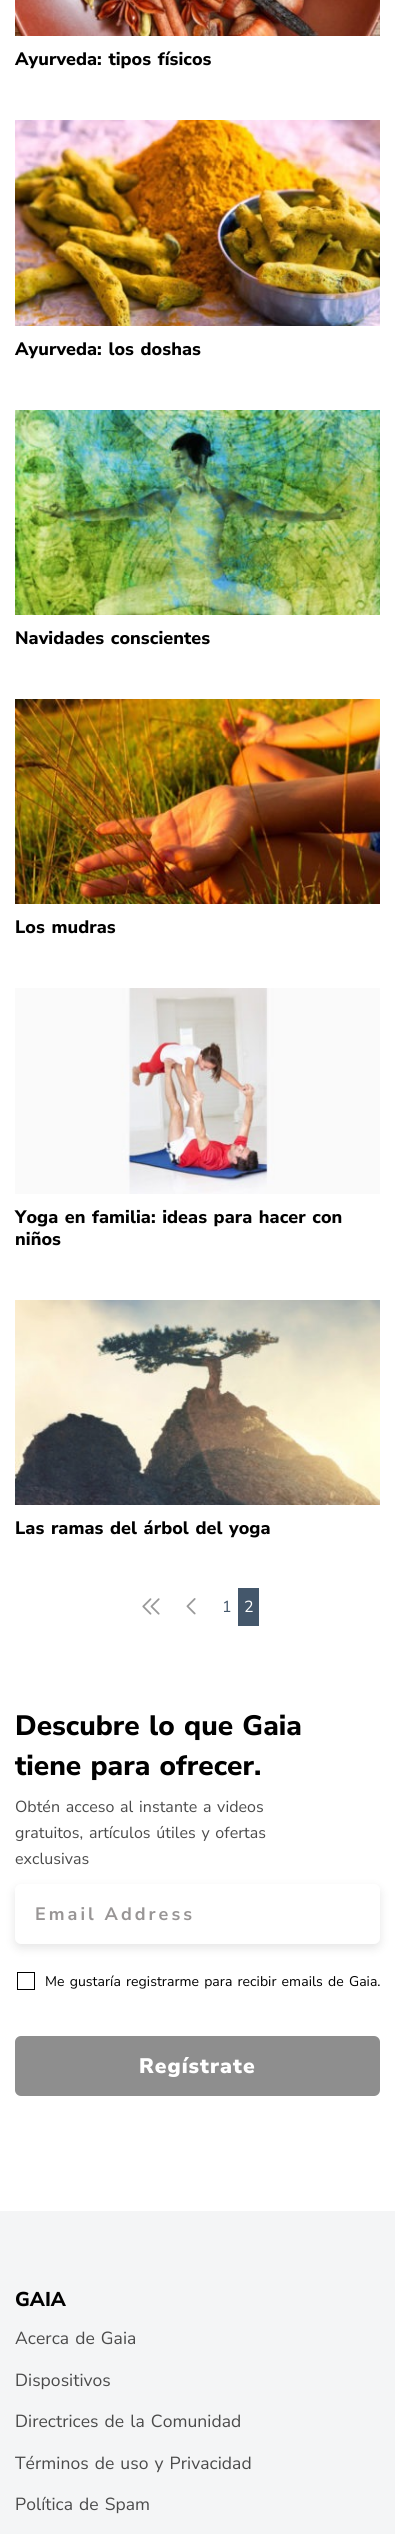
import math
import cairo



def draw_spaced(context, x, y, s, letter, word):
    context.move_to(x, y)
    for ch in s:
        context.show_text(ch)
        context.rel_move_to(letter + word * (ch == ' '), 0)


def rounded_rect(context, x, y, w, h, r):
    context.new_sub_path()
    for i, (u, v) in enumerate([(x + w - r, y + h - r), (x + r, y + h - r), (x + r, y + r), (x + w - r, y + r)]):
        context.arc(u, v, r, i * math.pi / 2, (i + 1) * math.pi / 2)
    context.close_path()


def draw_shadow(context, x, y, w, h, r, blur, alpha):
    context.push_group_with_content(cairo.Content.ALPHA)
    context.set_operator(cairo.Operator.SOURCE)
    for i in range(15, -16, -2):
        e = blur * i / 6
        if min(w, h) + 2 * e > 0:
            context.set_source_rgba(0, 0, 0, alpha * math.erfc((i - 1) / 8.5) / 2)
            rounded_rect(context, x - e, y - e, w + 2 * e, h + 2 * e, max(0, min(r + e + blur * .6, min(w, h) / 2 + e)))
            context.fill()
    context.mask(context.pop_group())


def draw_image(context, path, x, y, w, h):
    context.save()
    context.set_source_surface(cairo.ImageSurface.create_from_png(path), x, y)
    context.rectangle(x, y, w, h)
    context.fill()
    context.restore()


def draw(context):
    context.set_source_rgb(1, 1, 1)
    context.paint()
    draw_image(context, "images/1.png", 15, 0, 365, 36)
    draw_image(context, "images/2.png", 15, 120, 365, 206)
    draw_image(context, "images/3.png", 15, 410, 365, 205)
    draw_image(context, "images/4.png", 15, 699, 365, 205)
    draw_image(context, "images/5.png", 15, 988, 365, 206)
    draw_image(context, "images/6.png", 15, 1300, 365, 205)
    draw_image(context, "images/7.png", 142, 1598, 18, 17)
    draw_image(context, "images/8.png", 186, 1598, 10, 17)
    context.set_source_rgb(68 / 255, 87 / 255, 107 / 255)
    context.rectangle(238, 1588, 21, 38)
    context.fill()
    context.set_source_rgb(0, 0, 0)
    draw_shadow(context, 15, 1888, 365, 60, 6, 5, 0.1)
    context.set_source_rgb(1, 1, 1)
    rounded_rect(context, 15, 1884, 365, 60, 6)
    context.fill()
    context.rectangle(17.5, 1972.5, 17, 17)
    context.set_source_rgb(0, 0, 0)
    context.set_line_width(1)
    context.stroke()
    context.set_source_rgb(142 / 255, 142 / 255, 142 / 255)
    rounded_rect(context, 15, 2036, 365, 60, 6)
    context.fill()
    context.set_source_rgb(244 / 255, 245 / 255, 246 / 255)
    context.rectangle(0, 2211, 395, 323)
    context.fill()
    context.select_font_face("Nunito Sans ExtraBold")
    context.set_font_size(18)
    context.set_source_rgb(0, 0, 0)
    draw_spaced(context, 15, 65, "Ayurveda: tipos físicos", 0.05, 1.5)
    draw_spaced(context, 15, 355, "Ayurveda: los doshas", 0.05, 1.5)
    draw_spaced(context, 15, 644, "Navidades conscientes", 0.05, 1.5)
    draw_spaced(context, 15, 933, "Los mudras", 0.05, 1.5)
    draw_spaced(context, 15, 1223, "Yoga en", 0.05, 1.5)
    draw_spaced(context, 92, 1223, "familia: ideas para hacer con", 0.05, 1.5)
    draw_spaced(context, 15, 1245, "niños", 0.05, 0)
    draw_spaced(context, 15, 1534, "Las ramas del árbol del yoga", 0.05, 1.5)
    context.select_font_face("Nunito Sans")
    context.set_font_size(16)
    context.set_source_rgb(68 / 255, 87 / 255, 107 / 255)
    draw_spaced(context, 222, 1612, "1", 0.05, 0)
    context.set_source_rgb(1, 1, 1)
    draw_spaced(context, 244, 1612, "2", 0.05, 0)
    context.select_font_face("Nunito Sans ExtraBold")
    context.set_font_size(28)
    context.set_source_rgb(0, 0, 0)
    draw_spaced(context, 15, 1735, "Descubre lo que Gaia", 0, 1.5)
    draw_spaced(context, 15, 1775, "tiene para ofrecer.", 0, 1.5)
    context.select_font_face("Nunito Sans")
    context.set_font_size(16)
    context.set_source_rgb(74 / 255, 74 / 255, 74 / 255)
    draw_spaced(context, 15, 1812, "Obtén acceso al instante a videos", 0.05, 1.5)
    draw_spaced(context, 15, 1838, "gratuitos, artículos útiles y ofertas", 0.05, 1.5)
    draw_spaced(context, 15, 1864, "exclusivas", 0.05, 0)
    context.select_font_face("Nunito Sans", cairo.FontSlant.NORMAL, cairo.FontWeight.BOLD)
    context.set_font_size(18)
    context.set_source_rgb(152 / 255, 149 / 255, 149 / 255)
    draw_spaced(context, 35, 1920, "Email Address", 3, 0)
    context.select_font_face("Nunito Sans")
    context.set_font_size(14)
    context.set_source_rgb(0, 0, 0)
    draw_spaced(context, 45, 1986, "Me gustaría registrarme para recibir emails de Gaia.", 0.05, 1.5)
    context.select_font_face("Nunito Sans Black")
    context.set_font_size(21)
    context.set_source_rgb(1, 1, 1)
    draw_spaced(context, 139, 2073, "Regístrate", 1, 0)
    context.select_font_face("Nunito Sans ExtraBold")
    context.set_font_size(20)
    context.set_source_rgb(0, 0, 0)
    context.move_to(15, 2306)
    context.show_text("GAIA")
    context.select_font_face("Nunito Sans")
    context.set_font_size(17.5)
    context.set_source_rgb(74 / 255, 74 / 255, 74 / 255)
    draw_spaced(context, 15, 2344, "Acerca de Gaia", 0.05, 1.5)
    draw_spaced(context, 15, 2386, "Dispositivos", 0.05, 0)
    draw_spaced(context, 15, 2427, "Directrices de la Comunidad", 0.05, 1.5)
    draw_spaced(context, 15, 2469, "Términos de uso y Privacidad", 0.05, 1.5)
    draw_spaced(context, 15, 2510, "Política de Spam", 0.05, 1.5)


surface = cairo.ImageSurface(cairo.Format.RGB24, 395, 2534)
context = cairo.Context(surface)
options = cairo.FontOptions()
options.set_hint_metrics(cairo.HintMetrics.OFF)
options.set_hint_style(cairo.HintStyle.NONE)
context.set_font_options(options)
context.set_miter_limit(4)
draw(context)
surface.write_to_png("out.png")
